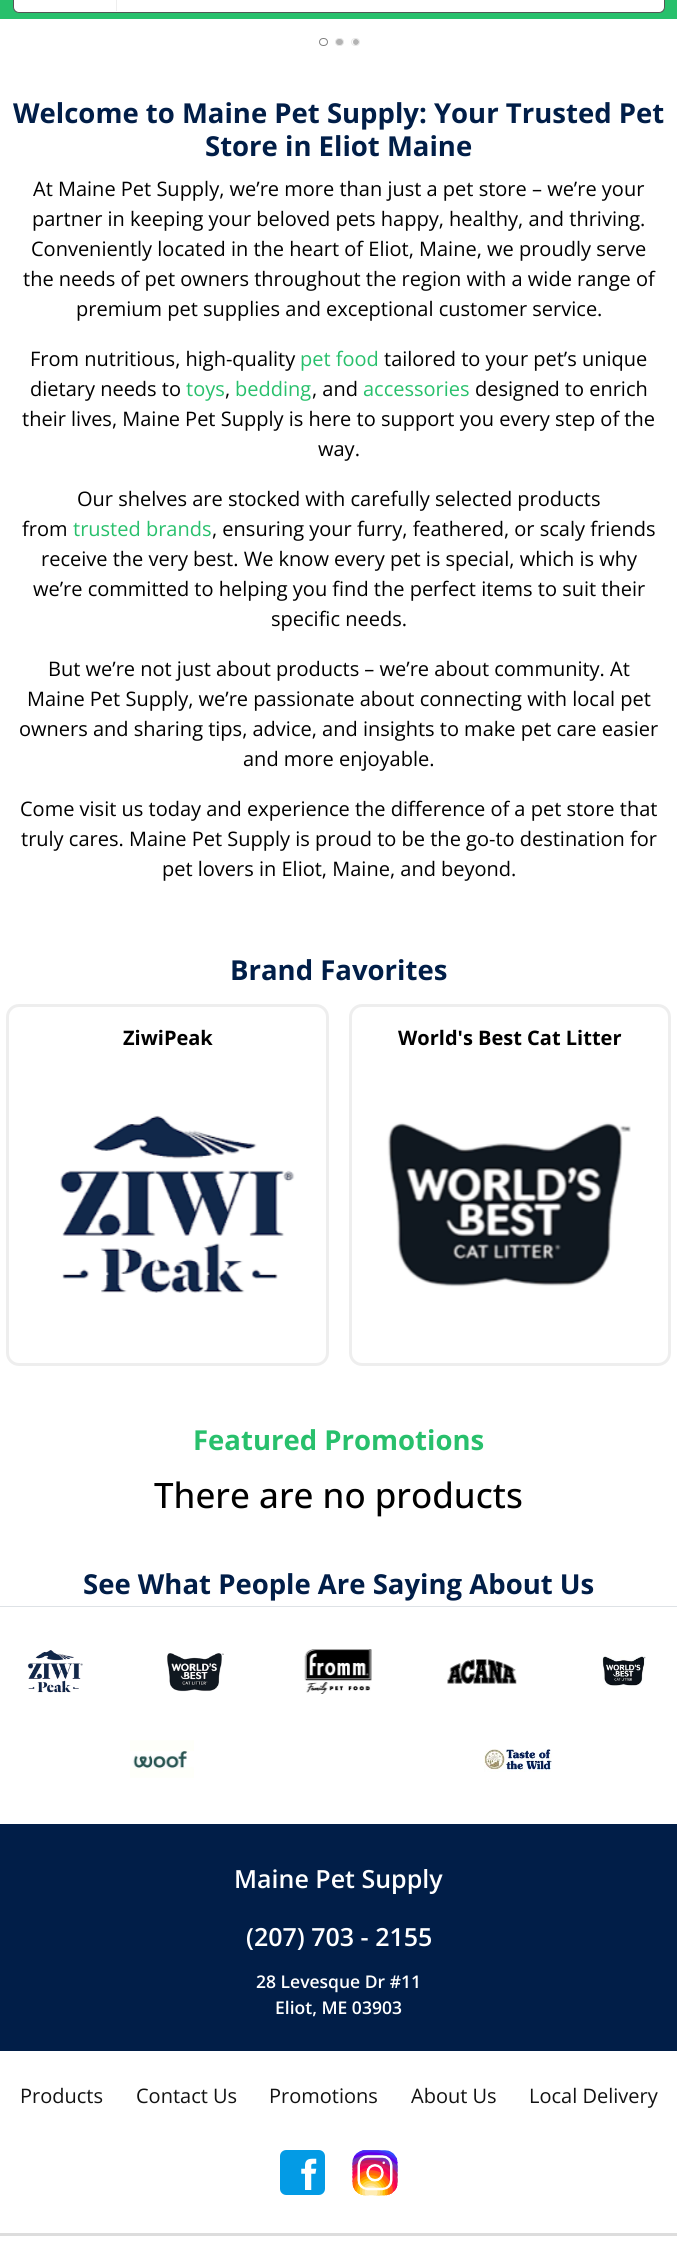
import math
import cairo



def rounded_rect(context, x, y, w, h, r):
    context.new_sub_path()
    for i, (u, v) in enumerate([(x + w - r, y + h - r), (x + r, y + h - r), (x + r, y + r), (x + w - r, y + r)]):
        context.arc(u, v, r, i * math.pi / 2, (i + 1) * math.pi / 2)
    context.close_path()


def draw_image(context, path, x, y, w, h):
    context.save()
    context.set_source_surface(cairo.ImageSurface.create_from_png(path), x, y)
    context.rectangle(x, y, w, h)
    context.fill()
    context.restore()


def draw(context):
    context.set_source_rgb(1, 1, 1)
    context.paint()
    context.set_source_rgb(40 / 255, 192 / 255, 108 / 255)
    context.rectangle(13, 7, 652, 12)
    context.fill()
    context.rectangle(0, 0, 13, 19)
    context.fill()
    context.set_source_rgb(1, 1, 1)
    rounded_rect(context, 13.5, -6.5, 651, 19, 5.5)
    context.fill_preserve()
    context.set_source_rgb(85 / 255, 85 / 255, 85 / 255)
    context.set_line_width(1)
    context.stroke()
    context.set_source_rgb(238 / 255, 238 / 255, 238 / 255)
    context.rectangle(116, 0, 1, 11)
    context.fill()
    context.set_source_rgb(40 / 255, 192 / 255, 108 / 255)
    context.rectangle(665, 0, 12, 19)
    context.fill()
    rounded_rect(context, 319.5, 38.5, 8, 7, 3.5)
    context.set_source_rgb(128 / 255, 128 / 255, 128 / 255)
    context.stroke()
    context.set_source_rgb(179 / 255, 179 / 255, 179 / 255)
    rounded_rect(context, 335.5, 38.5, 8, 7, 3.5)
    context.fill_preserve()
    context.set_source_rgb(232 / 255, 232 / 255, 232 / 255)
    context.stroke()
    context.set_source_rgb(179 / 255, 179 / 255, 179 / 255)
    context.arc(356, 42, 3, 0, 2 * math.pi)
    context.fill()
    rounded_rect(context, 351.5, 38.5, 8, 7, 3.5)
    context.set_source_rgb(232 / 255, 232 / 255, 232 / 255)
    context.stroke()
    rounded_rect(context, 7.5, 1005.5, 320, 359, 11.5)
    context.set_source_rgb(238 / 255, 238 / 255, 238 / 255)
    context.set_line_width(3)
    context.stroke()
    draw_image(context, "images/1.png", 60, 1115, 235, 178)
    rounded_rect(context, 350.5, 1005.5, 319, 359, 11.5)
    context.stroke()
    draw_image(context, "images/2.png", 387, 1122, 244, 165)
    context.set_source_rgb(222 / 255, 226 / 255, 230 / 255)
    context.rectangle(0, 1606, 677, 1)
    context.fill()
    draw_image(context, "images/3.png", 27, 1650, 56, 43)
    draw_image(context, "images/4.png", 167, 1653, 57, 39)
    draw_image(context, "images/5.png", 304, 1649, 68, 45)
    draw_image(context, "images/6.png", 447, 1659, 70, 25)
    draw_image(context, "images/7.png", 602, 1656, 44, 30)
    draw_image(context, "images/8.png", 130, 1740, 64, 38)
    draw_image(context, "images/9.png", 484, 1749, 68, 23)
    context.set_source_rgb(1 / 255, 30 / 255, 72 / 255)
    context.rectangle(0, 1824, 677, 227)
    context.fill()
    draw_image(context, "images/10.png", 280, 2150, 45, 45)
    draw_image(context, "images/11.png", 352, 2150, 46, 46)
    context.set_source_rgb(221 / 255, 221 / 255, 221 / 255)
    context.rectangle(0, 2233, 677, 3)
    context.fill()
    context.select_font_face("Open Sans", cairo.FontSlant.NORMAL, cairo.FontWeight.BOLD)
    context.set_font_size(27.5)
    context.set_source_rgb(1 / 255, 30 / 255, 72 / 255)
    context.move_to(13, 123)
    context.show_text("Welcome to Maine Pet Supply: Your Trusted Pet")
    context.move_to(205, 156)
    context.show_text("Store in Eliot Maine")
    context.select_font_face("Open Sans")
    context.set_font_size(20)
    context.set_source_rgb(0, 0, 0)
    context.move_to(33, 196)
    context.show_text("At Maine Pet Supply, we’re more than just a pet store – we’re your")
    context.move_to(32, 226)
    context.show_text("partner in keeping your beloved pets happy, healthy, and thriving.")
    context.move_to(31, 256)
    context.show_text("Conveniently located in the heart of Eliot, Maine, we proudly serve")
    context.move_to(23, 286)
    context.show_text("the needs of pet owners throughout the region with a wide range of")
    context.move_to(76, 316)
    context.show_text("premium pet supplies and exceptional customer service.")
    context.move_to(30, 366)
    context.show_text("From nutritious, high-quality")
    context.set_source_rgb(40 / 255, 192 / 255, 108 / 255)
    context.move_to(300, 366)
    context.show_text("pet food")
    context.set_source_rgb(0, 0, 0)
    context.move_to(384, 366)
    context.show_text("tailored to your pet’s unique")
    context.move_to(30, 396)
    context.show_text("dietary needs to")
    context.set_source_rgb(40 / 255, 192 / 255, 108 / 255)
    context.move_to(186, 396)
    context.show_text("toys")
    context.set_source_rgb(0, 0, 0)
    context.move_to(225, 396)
    context.show_text(",")
    context.set_source_rgb(40 / 255, 192 / 255, 108 / 255)
    context.move_to(235, 396)
    context.show_text("bedding")
    context.set_source_rgb(0, 0, 0)
    context.move_to(312, 396)
    context.show_text(", and")
    context.set_source_rgb(40 / 255, 192 / 255, 108 / 255)
    context.move_to(363, 396)
    context.show_text("accessories")
    context.set_source_rgb(0, 0, 0)
    context.move_to(475, 396)
    context.show_text("designed to enrich")
    context.move_to(22, 426)
    context.show_text("their lives, Maine Pet Supply is here to support you every step of the")
    context.move_to(318, 456)
    context.show_text("way.")
    context.move_to(77, 506)
    context.show_text("Our shelves are stocked with carefully selected products")
    context.move_to(22, 536)
    context.show_text("from")
    context.set_source_rgb(40 / 255, 192 / 255, 108 / 255)
    context.move_to(73, 536)
    context.show_text("trusted brands")
    context.set_source_rgb(0, 0, 0)
    context.move_to(212, 536)
    context.show_text(", ensuring your furry, feathered, or scaly friends")
    context.move_to(41, 566)
    context.show_text("receive the very best. We know every pet is special, which is why")
    context.move_to(33, 596)
    context.show_text("we’re committed to helping you find the perfect items to suit their")
    context.move_to(271, 626)
    context.show_text("specific needs.")
    context.move_to(48, 676)
    context.show_text("But we’re not just about products – we’re about community. At")
    context.move_to(27, 706)
    context.show_text("Maine Pet Supply, we’re passionate about connecting with local pet")
    context.move_to(19, 736)
    context.show_text("owners and sharing tips, advice, and insights to make pet care easier")
    context.move_to(243, 766)
    context.show_text("and more enjoyable.")
    context.move_to(20, 816)
    context.show_text("Come visit us today and experience the difference of a pet store that")
    context.move_to(21, 846)
    context.show_text("truly cares. Maine Pet Supply is proud to be the go-to destination for")
    context.move_to(162, 876)
    context.show_text("pet lovers in Eliot, Maine, and beyond.")
    context.select_font_face("Open Sans", cairo.FontSlant.NORMAL, cairo.FontWeight.BOLD)
    context.set_font_size(27.5)
    context.set_source_rgb(1 / 255, 30 / 255, 72 / 255)
    context.move_to(230, 980)
    context.show_text("Brand Favorites")
    context.set_font_size(20)
    context.set_source_rgb(0, 0, 0)
    context.move_to(123, 1045)
    context.show_text("ZiwiPeak")
    context.move_to(398, 1045)
    context.show_text("World's Best Cat Litter")
    context.set_font_size(27.5)
    context.set_source_rgb(40 / 255, 192 / 255, 108 / 255)
    context.move_to(193, 1450)
    context.show_text("Featured Promotions")
    context.select_font_face("Open Sans Medium")
    context.set_font_size(35)
    context.set_source_rgb(0, 0, 0)
    context.move_to(154, 1508)
    context.show_text("There are no products")
    context.select_font_face("Open Sans", cairo.FontSlant.NORMAL, cairo.FontWeight.BOLD)
    context.set_font_size(27.5)
    context.set_source_rgb(1 / 255, 30 / 255, 72 / 255)
    context.move_to(83, 1594)
    context.show_text("See What People Are Saying About Us")
    context.select_font_face("Open Sans SemiBold")
    context.set_font_size(25)
    context.set_source_rgb(1, 1, 1)
    context.move_to(234, 1888)
    context.show_text("Maine Pet Supply")
    context.move_to(246, 1946)
    context.show_text("(207) 703 - 2155")
    context.set_font_size(17.5)
    context.move_to(256, 1988)
    context.show_text("28 Levesque Dr #11")
    context.move_to(275, 2014)
    context.show_text("Eliot, ME 03903")
    context.select_font_face("Open Sans")
    context.set_font_size(20)
    context.set_source_rgb(18 / 255, 18 / 255, 18 / 255)
    context.move_to(20, 2103)
    context.show_text("Products")
    context.move_to(136, 2103)
    context.show_text("Contact Us")
    context.move_to(269, 2103)
    context.show_text("Promotions")
    context.move_to(411, 2103)
    context.show_text("About Us")
    context.move_to(529, 2103)
    context.show_text("Local Delivery")


surface = cairo.ImageSurface(cairo.Format.RGB24, 677, 2242)
context = cairo.Context(surface)
options = cairo.FontOptions()
options.set_hint_metrics(cairo.HintMetrics.OFF)
options.set_hint_style(cairo.HintStyle.NONE)
context.set_font_options(options)
context.set_miter_limit(4)
draw(context)
surface.write_to_png("out.png")
